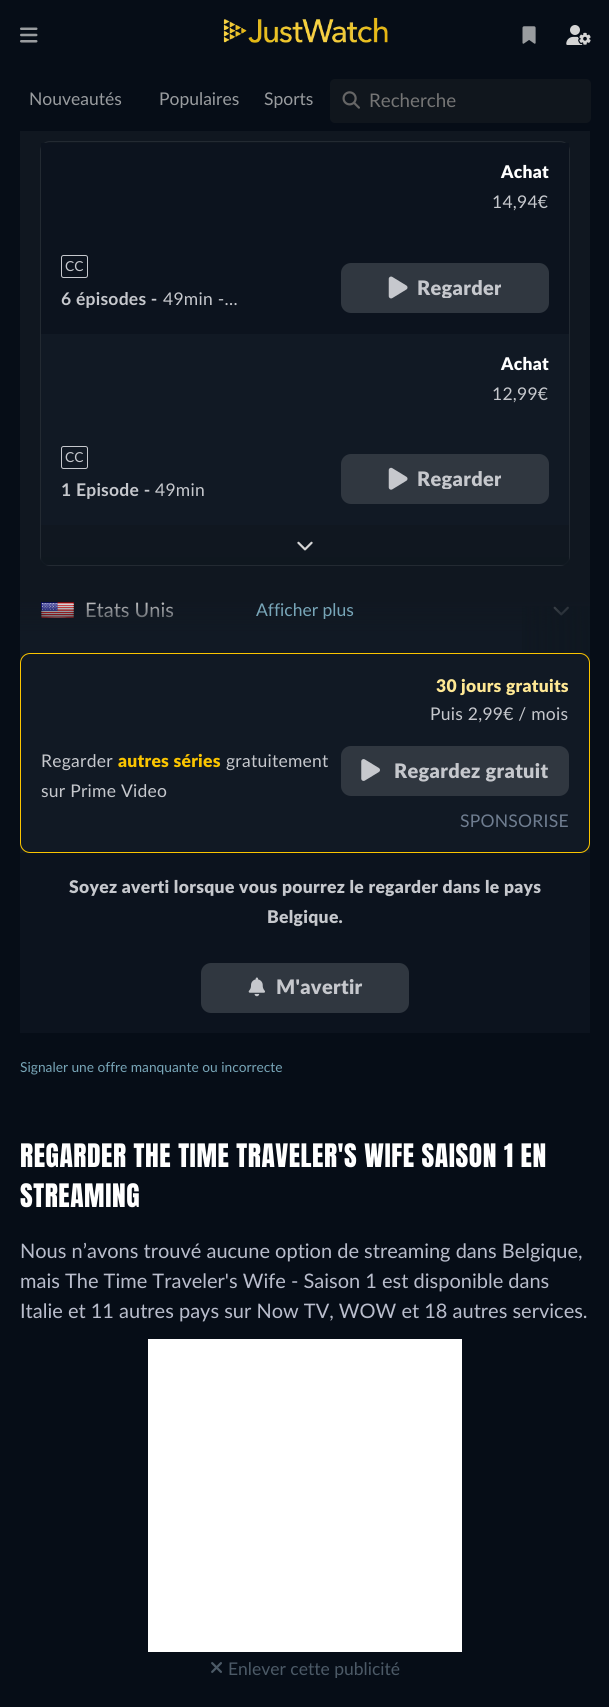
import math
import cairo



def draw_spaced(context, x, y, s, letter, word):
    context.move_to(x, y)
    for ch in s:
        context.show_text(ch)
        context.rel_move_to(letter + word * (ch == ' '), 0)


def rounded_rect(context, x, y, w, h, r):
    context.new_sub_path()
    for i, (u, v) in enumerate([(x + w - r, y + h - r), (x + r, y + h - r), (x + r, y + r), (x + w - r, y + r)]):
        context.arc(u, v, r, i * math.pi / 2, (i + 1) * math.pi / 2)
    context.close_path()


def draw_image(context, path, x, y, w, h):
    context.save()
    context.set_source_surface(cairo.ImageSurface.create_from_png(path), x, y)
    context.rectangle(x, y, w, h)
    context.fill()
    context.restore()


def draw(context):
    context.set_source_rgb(6 / 255, 13 / 255, 23 / 255)
    context.paint()
    draw_image(context, "images/1.png", 223, 17, 165, 26)
    draw_image(context, "images/2.png", 20, 27, 18, 16)
    draw_image(context, "images/3.png", 566, 25, 25, 20)
    draw_image(context, "images/4.png", 522, 26, 14, 18)
    context.set_source_rgb(16 / 255, 22 / 255, 29 / 255)
    rounded_rect(context, 330, 79, 261, 44, 5)
    context.fill()
    draw_image(context, "images/5.png", 342, 91, 18, 18)
    context.set_source_rgb(16 / 255, 23 / 255, 32 / 255)
    context.rectangle(20, 131, 570, 503)
    context.fill()
    rounded_rect(context, 40.5, 141.5, 529, 424, 9.5)
    context.set_source_rgb(35 / 255, 42 / 255, 50 / 255)
    context.set_line_width(1)
    context.stroke()
    context.set_source_rgb(12 / 255, 19 / 255, 30 / 255)
    context.rectangle(41, 143, 528, 191)
    context.fill()
    rounded_rect(context, 61.5, 255.5, 26, 22, 2)
    context.set_source_rgb(198 / 255, 200 / 255, 205 / 255)
    context.stroke()
    context.set_source_rgb(48 / 255, 55 / 255, 64 / 255)
    rounded_rect(context, 341, 263, 208, 50, 10)
    context.fill()
    draw_image(context, "images/6.png", 388, 276, 20, 23)
    context.set_source_rgb(17 / 255, 25 / 255, 36 / 255)
    context.rectangle(41, 334, 528, 191)
    context.fill()
    rounded_rect(context, 61.5, 446.5, 26, 22, 2)
    context.set_source_rgb(198 / 255, 200 / 255, 205 / 255)
    context.stroke()
    context.set_source_rgb(48 / 255, 55 / 255, 64 / 255)
    rounded_rect(context, 341, 454, 208, 50, 10)
    context.fill()
    draw_image(context, "images/7.png", 388, 467, 20, 23)
    context.set_source_rgba(15 / 255, 23 / 255, 32 / 255, 0.8)
    context.rectangle(41, 557, 528, 8)
    context.fill()
    draw_image(context, "images/8.png", 297, 541, 16, 10)
    draw_image(context, "images/9.png", 41, 602, 33, 16)
    draw_image(context, "images/10.png", 553, 606, 16, 10)
    context.set_source_rgb(17 / 255, 25 / 255, 36 / 255)
    context.rectangle(20, 653, 570, 200)
    context.fill()
    rounded_rect(context, 20.5, 653.5, 569, 199, 9.5)
    context.set_source_rgb(251 / 255, 197 / 255, 0)
    context.stroke()
    context.set_source_rgb(48 / 255, 55 / 255, 64 / 255)
    rounded_rect(context, 341, 746, 228, 50, 10)
    context.fill()
    draw_image(context, "images/11.png", 361, 759, 19, 22)
    context.set_source_rgb(12 / 255, 19 / 255, 30 / 255)
    context.rectangle(20, 853, 570, 180)
    context.fill()
    context.set_source_rgb(48 / 255, 55 / 255, 64 / 255)
    rounded_rect(context, 201, 963, 208, 50, 10)
    context.fill()
    draw_image(context, "images/12.png", 248, 977, 17, 20)
    context.set_source_rgb(1, 1, 1)
    context.rectangle(148, 1339, 314, 313)
    context.fill()
    draw_image(context, "images/13.png", 211, 1662, 11, 11)
    context.select_font_face("Lato")
    context.set_font_size(17.5)
    context.set_source_rgb(153 / 255, 156 / 255, 159 / 255)
    context.move_to(29, 105)
    context.show_text("Nouveautés")
    context.move_to(159, 105)
    context.show_text("Populaires")
    context.move_to(264, 105)
    context.show_text("Sports")
    context.set_font_size(18.75)
    context.set_source_rgb(117 / 255, 117 / 255, 117 / 255)
    context.move_to(369, 107)
    context.show_text("Recherche")
    context.set_font_size(13.75)
    context.set_source_rgb(198 / 255, 200 / 255, 205 / 255)
    context.move_to(65, 271)
    context.show_text("CC")
    context.select_font_face("Lato", cairo.FontSlant.NORMAL, cairo.FontWeight.BOLD)
    context.set_font_size(17.5)
    draw_spaced(context, 61, 305, "6 épisodes -", 0.25, 0)
    context.select_font_face("Lato")
    draw_spaced(context, 163, 305, "49min -…", 0.25, 0)
    context.select_font_face("Lato Black")
    context.set_source_rgb(1, 1, 1)
    draw_spaced(context, 501, 178, "Achat", 0.25, 0)
    context.select_font_face("Lato")
    context.set_source_rgb(198 / 255, 200 / 255, 205 / 255)
    draw_spaced(context, 492, 208, "14,94€", 0.25, 0)
    context.save()
    context.rectangle(418, 278, 83, 20)
    context.clip()
    context.select_font_face("Lato Black")
    context.set_font_size(20)
    draw_spaced(context, 417, 295, "Regarder", 0.3, 0)
    context.restore()
    context.set_font_size(13.75)
    context.move_to(65, 462)
    context.show_text("CC")
    context.select_font_face("Lato", cairo.FontSlant.NORMAL, cairo.FontWeight.BOLD)
    context.set_font_size(17.5)
    draw_spaced(context, 61, 496, "1 Episode -", 0.25, 0)
    context.select_font_face("Lato")
    draw_spaced(context, 155, 496, "49min", 0.25, 0)
    context.select_font_face("Lato Black")
    context.set_source_rgb(1, 1, 1)
    draw_spaced(context, 501, 370, "Achat", 0.25, 0)
    context.select_font_face("Lato")
    context.set_source_rgb(198 / 255, 200 / 255, 205 / 255)
    draw_spaced(context, 492, 400, "12,99€", 0.25, 0)
    context.save()
    context.rectangle(418, 469, 83, 20)
    context.clip()
    context.select_font_face("Lato Black")
    context.set_font_size(20)
    draw_spaced(context, 417, 486, "Regarder", 0.3, 0)
    context.restore()
    context.set_font_size(20)
    context.set_source_rgb(213 / 255, 213 / 255, 213 / 255)
    context.move_to(85, 617)
    context.show_text("Etats Unis")
    gradient = cairo.LinearGradient(305, 653, 305, 568)
    gradient.add_color_stop_rgba(0.22, 17 / 255, 25 / 255, 36 / 255, 1)
    gradient.add_color_stop_rgba(0.65, 17 / 255, 25 / 255, 36 / 255, 0)
    gradient.add_color_stop_rgba(1, 15 / 255, 23 / 255, 32 / 255, 0)
    context.set_source(gradient)
    context.rectangle(20, 602, 570, 51)
    context.fill()
    gradient = cairo.LinearGradient(20, 610, 590, 610)
    gradient.add_color_stop_rgba(0.7, 15 / 255, 23 / 255, 32 / 255, 0)
    gradient.add_color_stop_rgba(1, 15 / 255, 23 / 255, 32 / 255, 0.9)
    context.set_source(gradient)
    context.rectangle(522, 606, 68, 47)
    context.fill()
    context.set_font_size(17.5)
    context.set_source_rgb(120 / 255, 166 / 255, 184 / 255)
    context.move_to(256, 616)
    context.show_text("Afficher plus")
    context.select_font_face("Lato Black")
    context.set_source_rgb(1, 232 / 255, 148 / 255)
    draw_spaced(context, 436, 692, "30 jours gratuits", 0.25, 0)
    context.select_font_face("Lato")
    context.set_source_rgb(198 / 255, 200 / 255, 205 / 255)
    draw_spaced(context, 430, 720, "Puis 2,99€ / mois", 0.25, 0)
    draw_spaced(context, 41, 767, "Regarder", 0.25, 0)
    context.select_font_face("Lato Black")
    context.set_source_rgb(251 / 255, 197 / 255, 0)
    draw_spaced(context, 118, 767, "autres séries", 0.25, 0)
    context.select_font_face("Lato")
    context.set_source_rgb(198 / 255, 200 / 255, 205 / 255)
    draw_spaced(context, 226, 767, "gratuitement", 0.25, 0)
    draw_spaced(context, 41, 797, "sur Prime Video", 0.25, 0)
    context.select_font_face("Lato Black")
    context.set_font_size(20)
    draw_spaced(context, 394, 778, "Regardez gratuit", 0.3, 0)
    context.select_font_face("Lato")
    context.set_font_size(17.5)
    context.set_source_rgb(111 / 255, 125 / 255, 144 / 255)
    draw_spaced(context, 460, 827, "SPONSORISE", 0.25, 0)
    context.select_font_face("Lato Black")
    context.set_source_rgb(198 / 255, 200 / 255, 205 / 255)
    draw_spaced(context, 69, 893, "Soyez averti lorsque vous pourrez le regarder dans le pays", 0.3, 0)
    draw_spaced(context, 267, 923, "Belgique.", 0.3, 0)
    context.set_font_size(20)
    draw_spaced(context, 276, 994, "M'avertir", 0.3, 0)
    context.select_font_face("Lato")
    context.set_font_size(13.75)
    context.set_source_rgb(120 / 255, 166 / 255, 184 / 255)
    context.move_to(20, 1072)
    context.show_text("Signaler une offre manquante ou incorrecte")
    context.select_font_face("Anton")
    context.set_font_size(27.5)
    context.set_source_rgb(1, 1, 1)
    draw_spaced(context, 20, 1167, "REGARDER THE TIME TRAVELER'S WIFE SAISON 1 EN", 0.55, 0)
    draw_spaced(context, 20, 1207, "STREAMING", 0.55, 0)
    context.select_font_face("Lato")
    context.set_font_size(20)
    context.set_source_rgb(185 / 255, 189 / 255, 204 / 255)
    context.move_to(20, 1258)
    context.show_text("Nous n’avons trouvé aucune option de streaming dans Belgique,")
    context.move_to(20, 1288)
    context.show_text("mais The Time Traveler's Wife - Saison 1 est disponible dans")
    context.move_to(20, 1318)
    context.show_text("Italie et 11 autres pays sur Now TV, WOW et 18 autres services.")
    context.set_font_size(17.5)
    context.set_source_rgb(76 / 255, 90 / 255, 103 / 255)
    context.move_to(228, 1675)
    context.show_text("Enlever cette publicité")


surface = cairo.ImageSurface(cairo.Format.RGB24, 609, 1707)
context = cairo.Context(surface)
options = cairo.FontOptions()
options.set_hint_metrics(cairo.HintMetrics.OFF)
options.set_hint_style(cairo.HintStyle.NONE)
context.set_font_options(options)
context.set_miter_limit(4)
draw(context)
surface.write_to_png("out.png")
